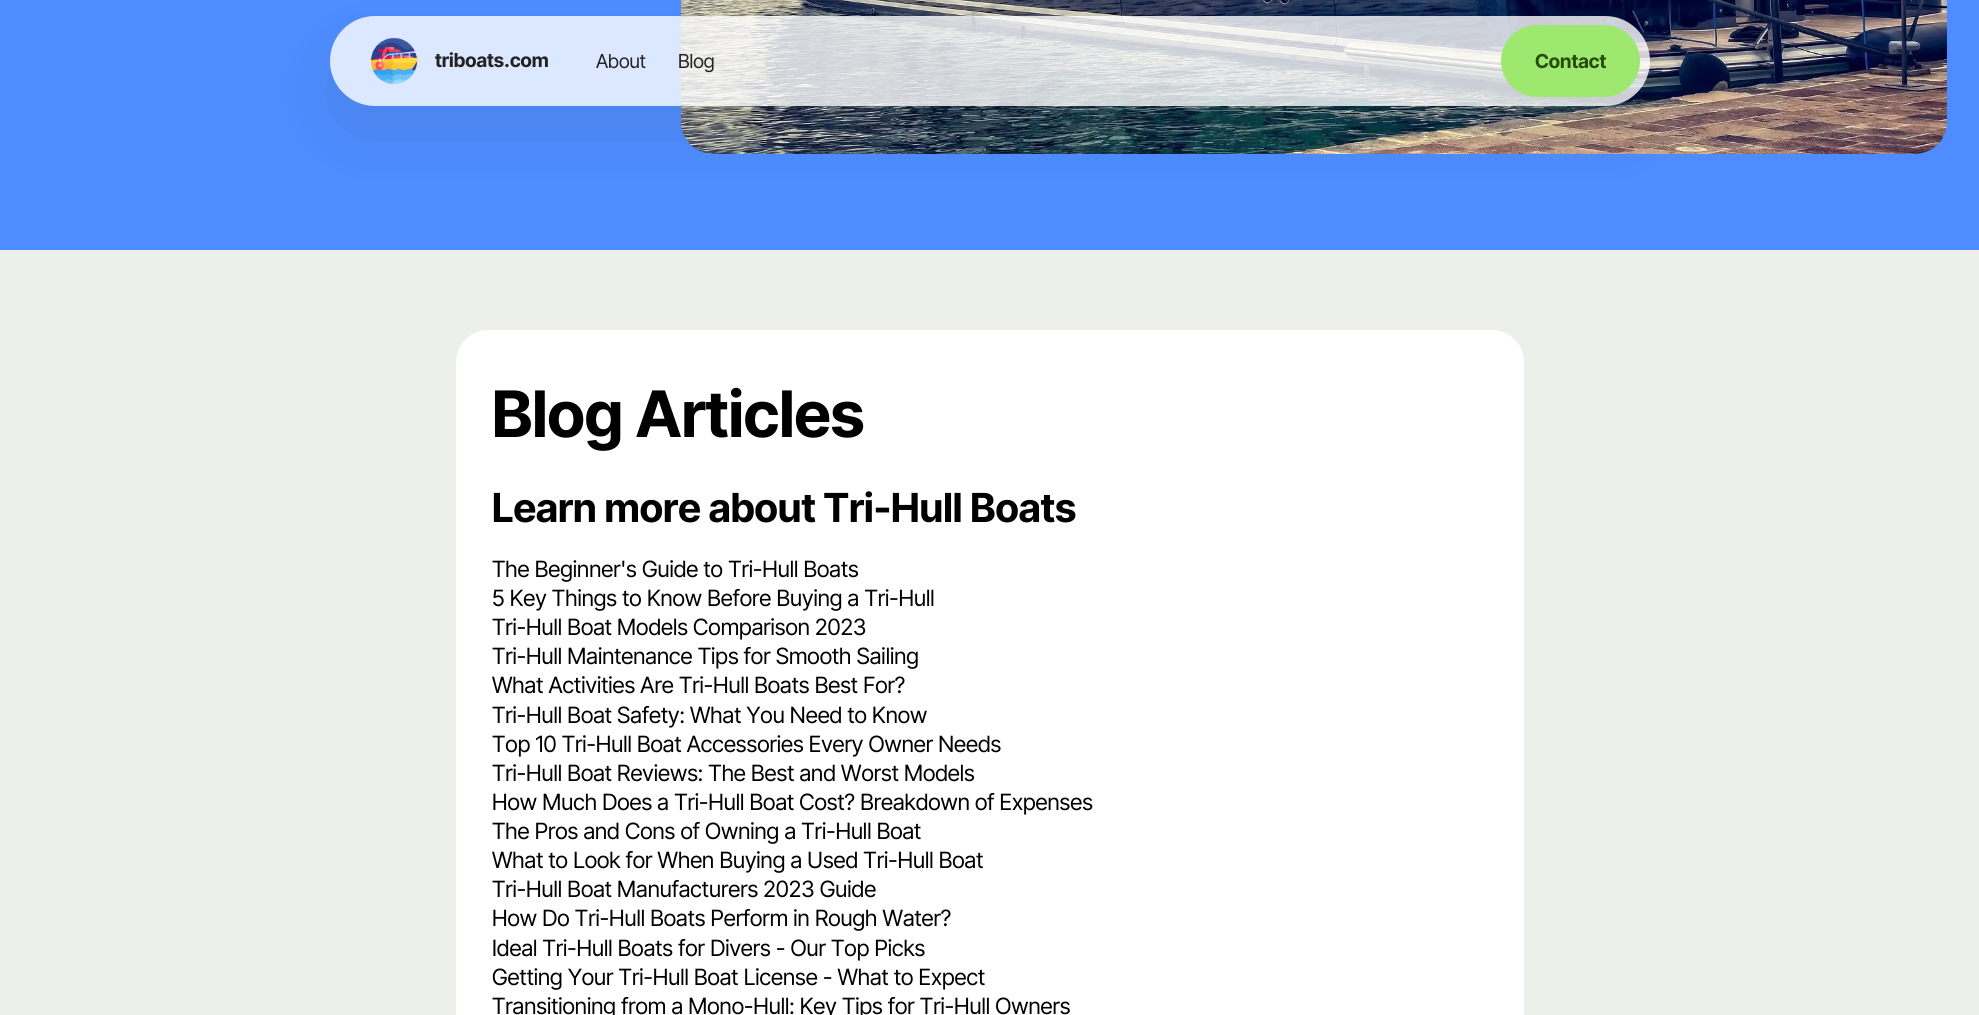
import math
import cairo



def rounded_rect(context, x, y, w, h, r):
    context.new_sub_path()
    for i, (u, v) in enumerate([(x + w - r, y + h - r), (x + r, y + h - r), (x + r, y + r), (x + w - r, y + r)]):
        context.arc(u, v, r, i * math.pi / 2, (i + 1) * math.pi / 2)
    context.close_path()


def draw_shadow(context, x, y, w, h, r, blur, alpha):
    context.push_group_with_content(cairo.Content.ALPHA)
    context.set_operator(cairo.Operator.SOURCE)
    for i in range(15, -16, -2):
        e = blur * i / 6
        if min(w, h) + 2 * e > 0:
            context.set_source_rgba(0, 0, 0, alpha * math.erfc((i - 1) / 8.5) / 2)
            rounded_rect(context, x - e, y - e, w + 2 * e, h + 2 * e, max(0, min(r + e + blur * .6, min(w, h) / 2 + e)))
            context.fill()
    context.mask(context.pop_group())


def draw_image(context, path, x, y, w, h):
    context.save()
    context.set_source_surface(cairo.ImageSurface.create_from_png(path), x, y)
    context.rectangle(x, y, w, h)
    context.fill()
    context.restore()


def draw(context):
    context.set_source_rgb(78 / 255, 140 / 255, 1)
    context.paint()
    draw_image(context, "images/1.png", 681, 0, 1266, 154)
    context.save()
    context.set_fill_rule(cairo.FillRule.EVEN_ODD)
    context.new_path()
    context.move_to(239, 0)
    context.line_to(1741, 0)
    context.line_to(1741, 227)
    context.line_to(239, 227)
    context.close_path()
    context.move_to(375, 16)
    context.line_to(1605, 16)
    context.curve_to(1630, 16, 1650, 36, 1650, 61)
    context.curve_to(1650, 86, 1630, 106, 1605, 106)
    context.line_to(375, 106)
    context.curve_to(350, 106, 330, 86, 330, 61)
    context.curve_to(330, 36, 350, 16, 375, 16)
    context.close_path()
    context.clip()
    context.set_source_rgb(27 / 255, 31 / 255, 10 / 255)
    draw_shadow(context, 330, 46, 1320, 90, 45, 30, 0.08)
    context.restore()
    context.set_source_rgba(1, 1, 1, 0.8)
    rounded_rect(context, 330, 16, 1320, 90, 45)
    context.fill()
    draw_image(context, "images/2.png", 371, 37, 48, 48)
    context.set_source_rgb(159 / 255, 232 / 255, 112 / 255)
    rounded_rect(context, 1502, 26, 137, 70, 35)
    context.fill_preserve()
    context.stroke()
    context.set_source_rgb(237 / 255, 239 / 255, 235 / 255)
    context.rectangle(0, 250, 1979, 765)
    context.fill()
    context.set_source_rgb(1, 1, 1)
    rounded_rect(context, 456, 330, 1068, 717, 32)
    context.fill()
    context.select_font_face("Inter Tight", cairo.FontSlant.NORMAL, cairo.FontWeight.BOLD)
    context.set_font_size(19.25)
    context.set_source_rgb(35 / 255, 35 / 255, 35 / 255)
    context.move_to(435, 67)
    context.show_text("triboats.com")
    context.select_font_face("Inter Tight")
    context.move_to(596, 68)
    context.show_text("About")
    context.move_to(678, 68)
    context.show_text("Blog")
    context.select_font_face("Inter Tight", cairo.FontSlant.NORMAL, cairo.FontWeight.BOLD)
    context.set_source_rgb(38 / 255, 77 / 255, 12 / 255)
    context.move_to(1535, 68)
    context.show_text("Contact")
    context.set_font_size(64)
    context.set_source_rgb(0, 0, 0)
    context.move_to(492, 437)
    context.show_text("Blog Articles")
    context.set_font_size(40)
    context.move_to(492, 522)
    context.show_text("Learn more about Tri-Hull Boats")
    context.select_font_face("Inter Tight")
    context.set_font_size(22.4)
    context.move_to(492, 577)
    context.show_text("The Beginner's Guide to Tri-Hull Boats")
    context.move_to(492, 606)
    context.show_text("5 Key Things to Know Before Buying a Tri-Hull")
    context.move_to(492, 635)
    context.show_text("Tri-Hull Boat Models Comparison 2023")
    context.move_to(492, 664)
    context.show_text("Tri-Hull Maintenance Tips for Smooth Sailing")
    context.move_to(492, 693)
    context.show_text("What Activities Are Tri-Hull Boats Best For?")
    context.move_to(492, 723)
    context.show_text("Tri-Hull Boat Safety: What You Need to Know")
    context.move_to(492, 752)
    context.show_text("Top 10 Tri-Hull Boat Accessories Every Owner Needs")
    context.move_to(492, 781)
    context.show_text("Tri-Hull Boat Reviews: The Best and Worst Models")
    context.move_to(492, 810)
    context.show_text("How Much Does a Tri-Hull Boat Cost? Breakdown of Expenses")
    context.move_to(492, 839)
    context.show_text("The Pros and Cons of Owning a Tri-Hull Boat")
    context.move_to(492, 868)
    context.show_text("What to Look for When Buying a Used Tri-Hull Boat")
    context.move_to(492, 897)
    context.show_text("Tri-Hull Boat Manufacturers 2023 Guide")
    context.move_to(492, 926)
    context.show_text("How Do Tri-Hull Boats Perform in Rough Water?")
    context.move_to(492, 956)
    context.show_text("Ideal Tri-Hull Boats for Divers - Our Top Picks")
    context.move_to(492, 985)
    context.show_text("Getting Your Tri-Hull Boat License - What to Expect")
    context.move_to(492, 1014)
    context.show_text("Transitioning from a Mono-Hull: Key Tips for Tri-Hull Owners")


surface = cairo.ImageSurface(cairo.Format.RGB24, 1979, 1015)
context = cairo.Context(surface)
options = cairo.FontOptions()
options.set_hint_metrics(cairo.HintMetrics.OFF)
options.set_hint_style(cairo.HintStyle.NONE)
context.set_font_options(options)
context.set_miter_limit(4)
draw(context)
surface.write_to_png("out.png")
